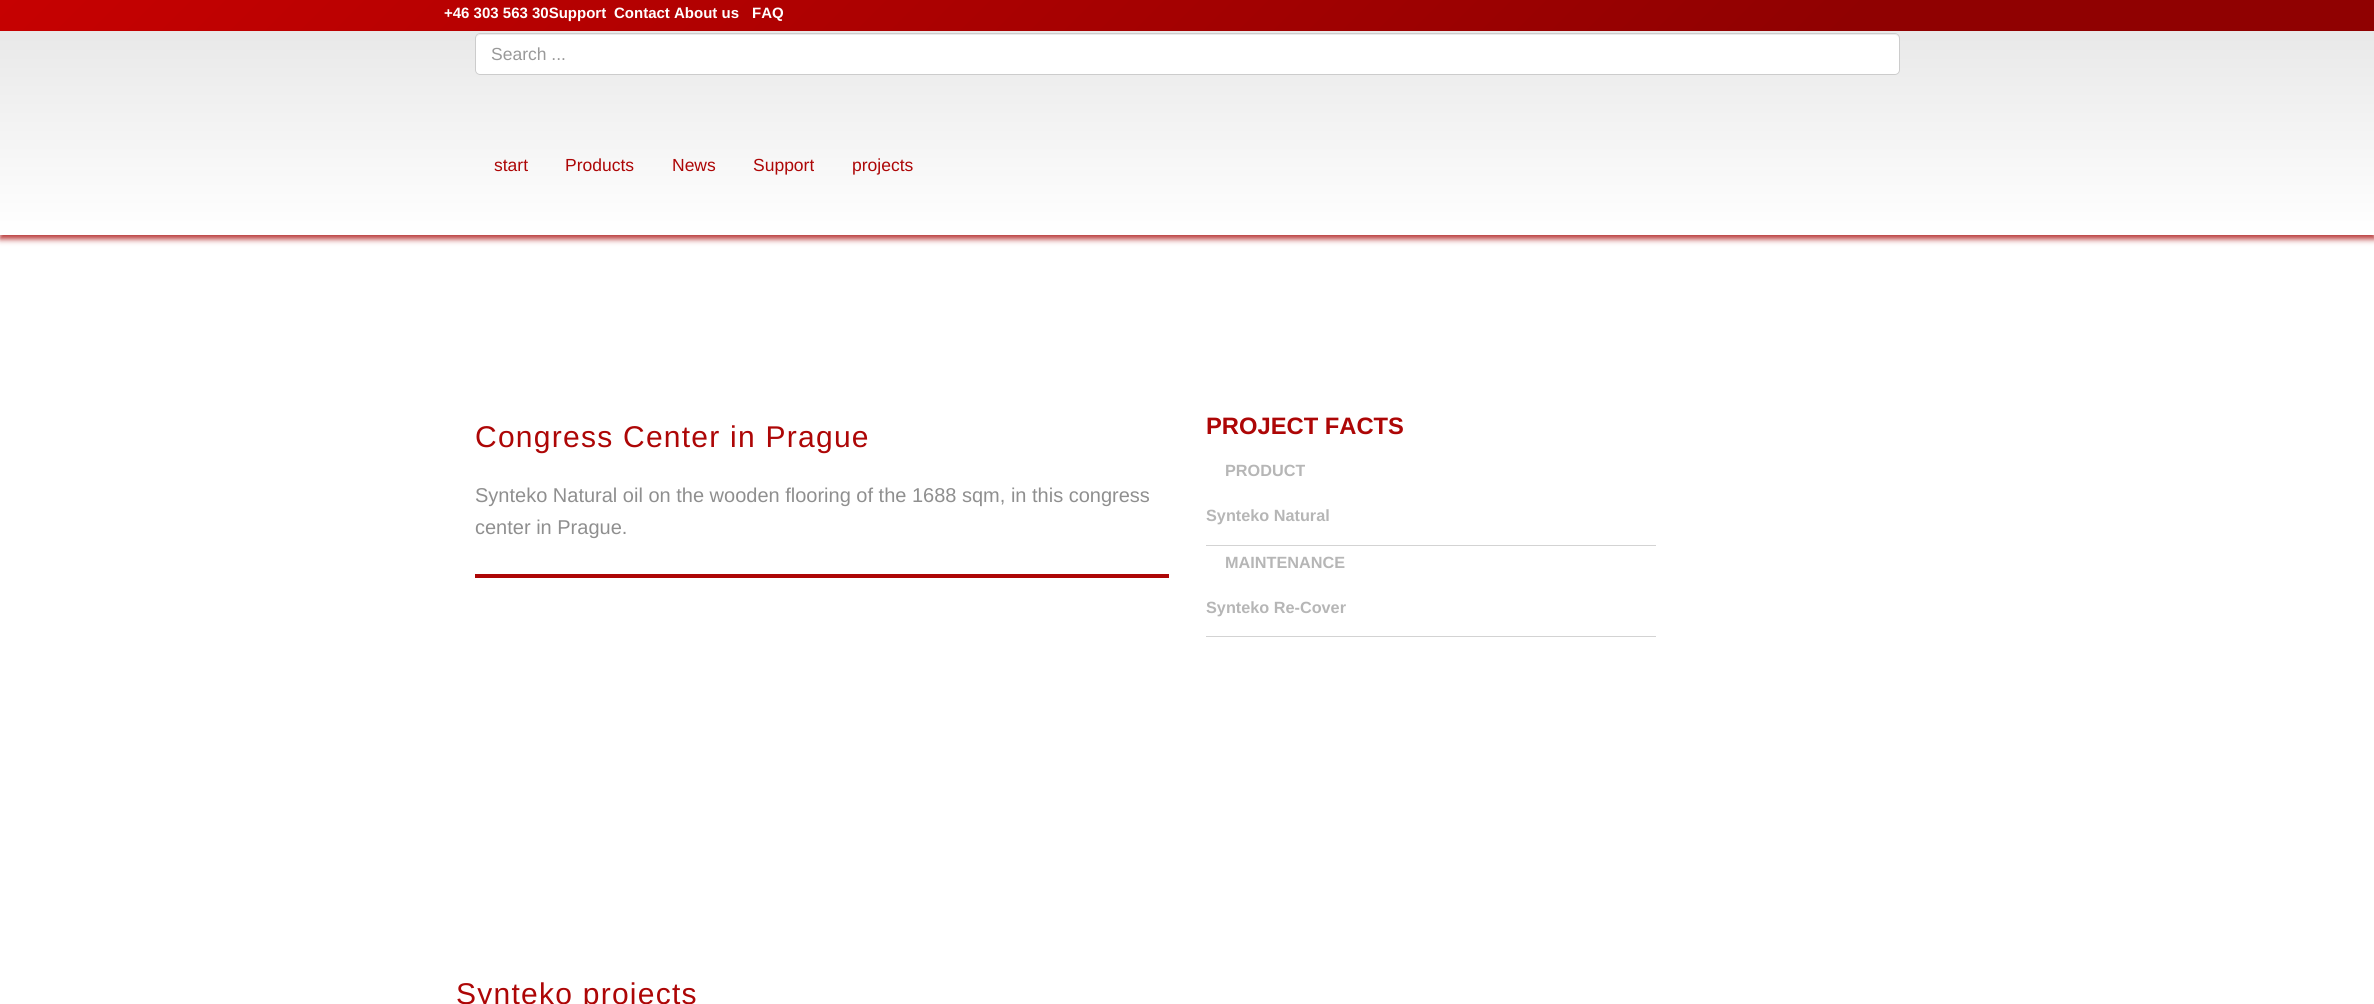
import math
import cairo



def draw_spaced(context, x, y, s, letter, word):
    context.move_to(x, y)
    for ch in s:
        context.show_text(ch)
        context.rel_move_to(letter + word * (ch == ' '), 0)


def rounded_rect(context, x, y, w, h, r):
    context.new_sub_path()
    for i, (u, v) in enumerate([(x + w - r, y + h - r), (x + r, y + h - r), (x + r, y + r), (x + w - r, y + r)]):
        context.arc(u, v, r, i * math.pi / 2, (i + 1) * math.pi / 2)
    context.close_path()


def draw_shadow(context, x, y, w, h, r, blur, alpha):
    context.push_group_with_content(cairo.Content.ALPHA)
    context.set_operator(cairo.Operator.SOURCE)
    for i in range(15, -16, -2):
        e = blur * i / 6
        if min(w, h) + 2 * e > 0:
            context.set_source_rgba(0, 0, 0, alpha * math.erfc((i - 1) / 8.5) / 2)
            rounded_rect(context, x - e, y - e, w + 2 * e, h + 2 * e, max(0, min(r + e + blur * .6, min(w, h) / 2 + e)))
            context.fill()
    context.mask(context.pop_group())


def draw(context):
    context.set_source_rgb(1, 1, 1)
    context.paint()
    context.set_source_rgb(167 / 255, 9 / 255, 9 / 255)
    draw_shadow(context, 0, 4, 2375, 235, 0, 3, 0.82)
    gradient = cairo.LinearGradient(586, -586, 1789, 617)
    gradient.add_color_stop_rgba(0, 198 / 255, 1 / 255, 1 / 255, 1)
    gradient.add_color_stop_rgba(0.78, 144 / 255, 1 / 255, 1 / 255, 1)
    context.set_source(gradient)
    context.rectangle(0, 0, 2374, 31)
    context.fill()
    gradient = cairo.LinearGradient(1188, 0, 1188, 235)
    gradient.add_color_stop_rgba(0, 229 / 255, 229 / 255, 229 / 255, 1)
    gradient.add_color_stop_rgba(1, 1, 1, 1, 1)
    context.set_source(gradient)
    context.rectangle(0, 31, 2374, 204)
    context.fill()
    context.set_source_rgb(1, 1, 1)
    rounded_rect(context, 475, 33, 1425, 42, 5)
    context.fill()
    context.set_source_rgb(236 / 255, 236 / 255, 236 / 255)
    context.new_path()
    context.move_to(480, 35)
    context.line_to(1895, 35)
    context.curve_to(1897, 35, 1899, 37, 1899, 39)
    context.line_to(1899, 38)
    context.curve_to(1899, 36, 1897, 34, 1895, 34)
    context.line_to(480, 34)
    context.curve_to(478, 34, 476, 36, 476, 38)
    context.line_to(476, 39)
    context.curve_to(476, 37, 478, 35, 480, 35)
    context.close_path()
    context.fill()
    rounded_rect(context, 475.5, 33.5, 1424, 41, 4.5)
    context.set_source_rgb(204 / 255, 204 / 255, 204 / 255)
    context.set_line_width(1)
    context.stroke()
    context.set_source_rgb(173 / 255, 6 / 255, 6 / 255)
    context.rectangle(475, 574, 694, 4)
    context.fill()
    context.set_source_rgb(211 / 255, 211 / 255, 211 / 255)
    context.rectangle(1206, 545, 450, 1)
    context.fill()
    context.rectangle(1206, 636, 450, 1)
    context.fill()
    context.select_font_face("Liberation Sans", cairo.FontSlant.NORMAL, cairo.FontWeight.BOLD)
    context.set_font_size(15)
    context.set_source_rgb(1, 1, 1)
    context.move_to(444, 18)
    context.show_text("+46 303 563 30Support")
    context.move_to(614, 18)
    context.show_text("Contact About us")
    context.move_to(752, 18)
    context.show_text("FAQ")
    context.select_font_face("Liberation Sans")
    context.set_font_size(17.5)
    context.set_source_rgb(153 / 255, 153 / 255, 153 / 255)
    context.move_to(491, 60)
    context.show_text("Search ...")
    context.set_source_rgb(173 / 255, 6 / 255, 6 / 255)
    context.move_to(494, 171)
    context.show_text("start")
    context.move_to(565, 171)
    context.show_text("Products")
    context.move_to(672, 171)
    context.show_text("News")
    context.move_to(753, 171)
    context.show_text("Support")
    context.move_to(852, 171)
    context.show_text("projects")
    context.set_font_size(30)
    draw_spaced(context, 475, 447, "Congress Center in Prague", 1.25, 0)
    context.set_font_size(20)
    context.set_source_rgb(143 / 255, 143 / 255, 143 / 255)
    context.move_to(475, 502)
    context.show_text("Synteko Natural oil on the wooden flooring of the 1688 sqm, in this congress")
    context.move_to(475, 534)
    context.show_text("center in Prague.")
    context.select_font_face("Liberation Sans", cairo.FontSlant.NORMAL, cairo.FontWeight.BOLD)
    context.set_font_size(23.75)
    context.set_source_rgb(173 / 255, 6 / 255, 6 / 255)
    context.move_to(1206, 434)
    context.show_text("PROJECT FACTS")
    context.set_font_size(16.25)
    context.set_source_rgb(182 / 255, 182 / 255, 182 / 255)
    context.move_to(1225, 476)
    context.show_text("PRODUCT")
    context.move_to(1206, 521)
    context.show_text("Synteko Natural")
    context.move_to(1225, 568)
    context.show_text("MAINTENANCE")
    context.move_to(1206, 613)
    context.show_text("Synteko Re-Cover")
    context.select_font_face("Liberation Sans")
    context.set_font_size(30)
    context.set_source_rgb(173 / 255, 6 / 255, 6 / 255)
    draw_spaced(context, 456, 1004, "Synteko projects", 1.25, 0)


surface = cairo.ImageSurface(cairo.Format.RGB24, 2374, 1004)
context = cairo.Context(surface)
options = cairo.FontOptions()
options.set_hint_metrics(cairo.HintMetrics.OFF)
options.set_hint_style(cairo.HintStyle.NONE)
context.set_font_options(options)
context.set_miter_limit(4)
draw(context)
surface.write_to_png("out.png")
